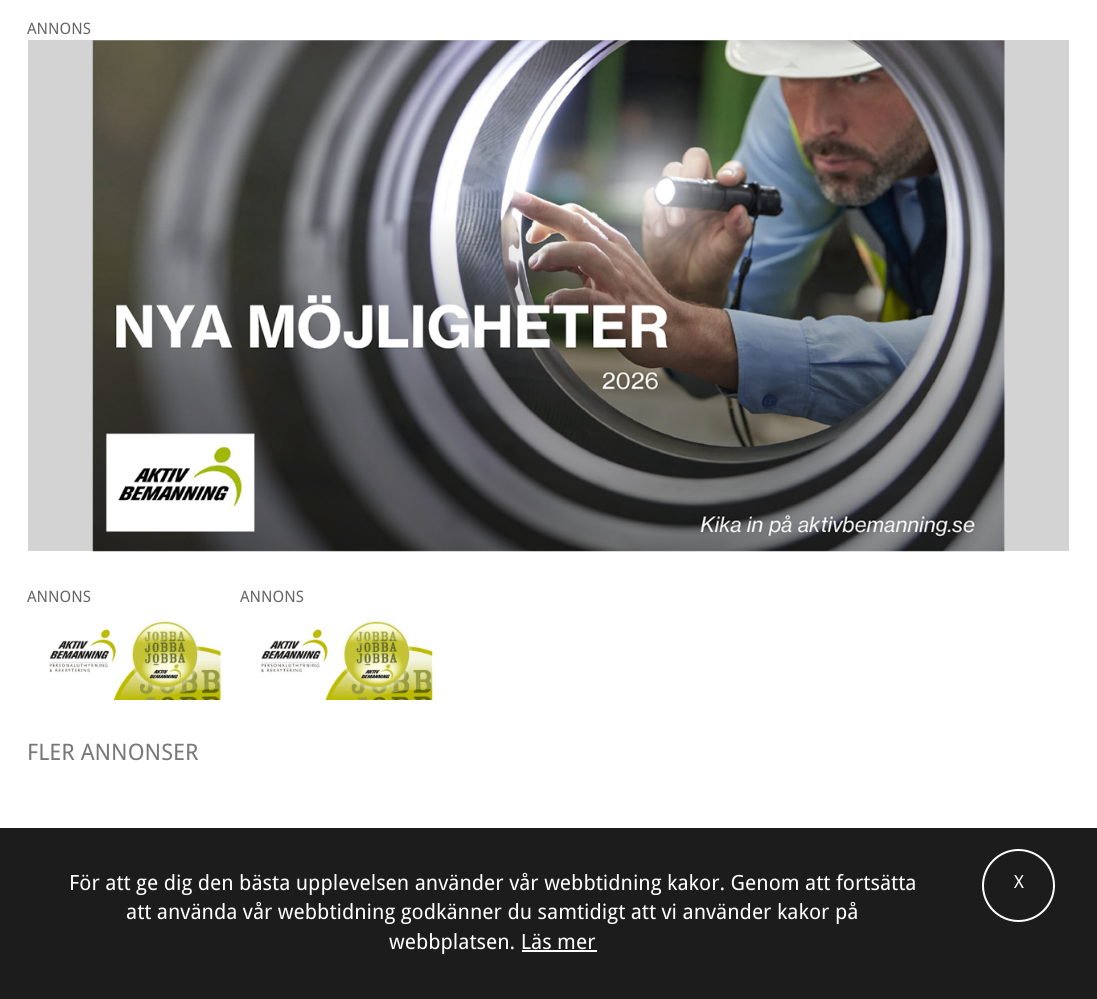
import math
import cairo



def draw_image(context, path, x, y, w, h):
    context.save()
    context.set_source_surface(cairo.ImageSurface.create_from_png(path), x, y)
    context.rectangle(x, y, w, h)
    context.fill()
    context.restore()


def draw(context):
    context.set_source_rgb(1, 1, 1)
    context.paint()
    context.set_source_rgb(211 / 255, 211 / 255, 211 / 255)
    context.rectangle(28, 40, 1041, 511)
    context.fill()
    draw_image(context, "images/1.png", 92, 40, 913, 512)
    draw_image(context, "images/2.png", 49, 620, 172, 80)
    draw_image(context, "images/3.png", 261, 620, 172, 80)
    context.set_source_rgb(28 / 255, 28 / 255, 28 / 255)
    context.rectangle(0, 828, 1097, 171)
    context.fill()
    context.arc(1018.5, 885.5, 35.5, 0, 2 * math.pi)
    context.set_source_rgb(1, 1, 1)
    context.stroke()
    context.rectangle(522, 950, 75, 2)
    context.fill()
    context.select_font_face("Droid Sans")
    context.set_font_size(15.75)
    context.set_source_rgb(102 / 255, 102 / 255, 102 / 255)
    context.move_to(27, 34)
    context.show_text("ANNONS")
    context.move_to(27, 602)
    context.show_text("ANNONS")
    context.move_to(240, 602)
    context.show_text("ANNONS")
    context.set_font_size(22.75)
    context.set_source_rgb(120 / 255, 120 / 255, 120 / 255)
    context.move_to(27, 760)
    context.show_text("FLER ANNONSER")
    context.set_font_size(21)
    context.set_source_rgb(1, 1, 1)
    context.move_to(69, 890)
    context.show_text("För att ge dig den bästa upplevelsen använder vår webbtidning kakor. Genom att fortsätta")
    context.set_font_size(18)
    context.move_to(1014, 888)
    context.show_text("X")
    context.set_font_size(21)
    context.move_to(126, 919)
    context.show_text("att använda vår webbtidning godkänner du samtidigt att vi använder kakor på")
    context.move_to(389, 949)
    context.show_text("webbplatsen. Läs mer")


surface = cairo.ImageSurface(cairo.Format.RGB24, 1097, 999)
context = cairo.Context(surface)
options = cairo.FontOptions()
options.set_hint_metrics(cairo.HintMetrics.OFF)
options.set_hint_style(cairo.HintStyle.NONE)
context.set_font_options(options)
context.set_miter_limit(4)
draw(context)
surface.write_to_png("out.png")
